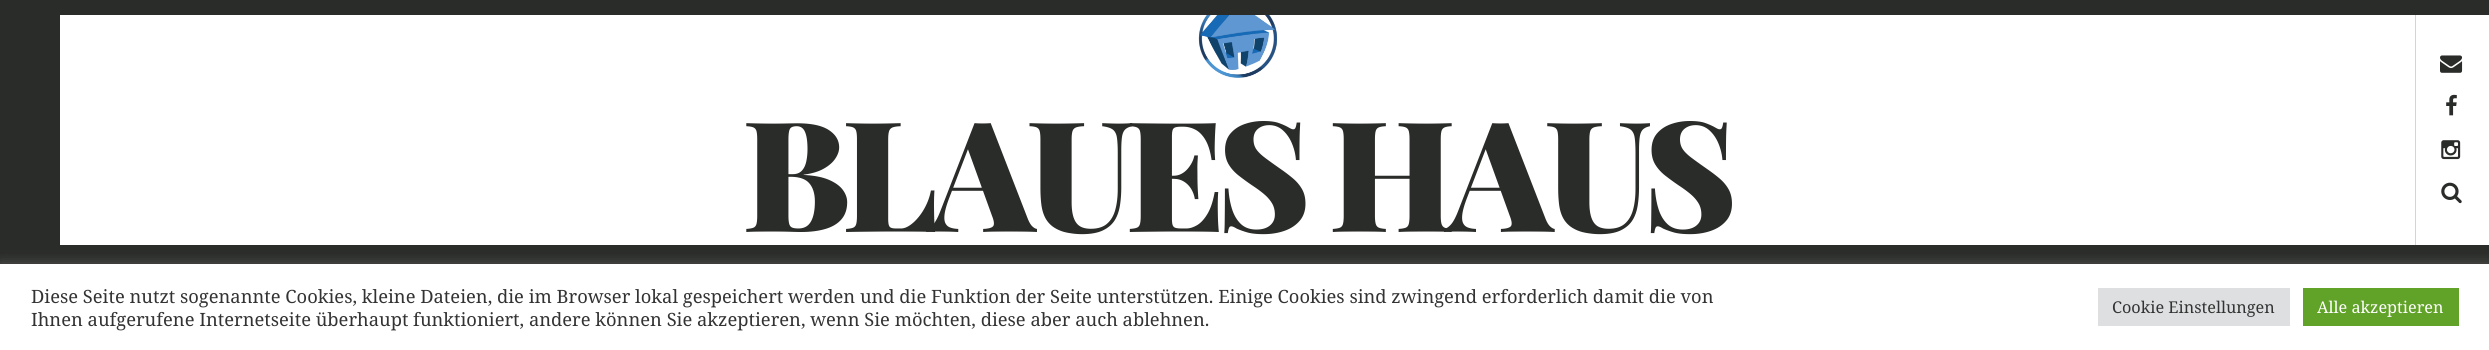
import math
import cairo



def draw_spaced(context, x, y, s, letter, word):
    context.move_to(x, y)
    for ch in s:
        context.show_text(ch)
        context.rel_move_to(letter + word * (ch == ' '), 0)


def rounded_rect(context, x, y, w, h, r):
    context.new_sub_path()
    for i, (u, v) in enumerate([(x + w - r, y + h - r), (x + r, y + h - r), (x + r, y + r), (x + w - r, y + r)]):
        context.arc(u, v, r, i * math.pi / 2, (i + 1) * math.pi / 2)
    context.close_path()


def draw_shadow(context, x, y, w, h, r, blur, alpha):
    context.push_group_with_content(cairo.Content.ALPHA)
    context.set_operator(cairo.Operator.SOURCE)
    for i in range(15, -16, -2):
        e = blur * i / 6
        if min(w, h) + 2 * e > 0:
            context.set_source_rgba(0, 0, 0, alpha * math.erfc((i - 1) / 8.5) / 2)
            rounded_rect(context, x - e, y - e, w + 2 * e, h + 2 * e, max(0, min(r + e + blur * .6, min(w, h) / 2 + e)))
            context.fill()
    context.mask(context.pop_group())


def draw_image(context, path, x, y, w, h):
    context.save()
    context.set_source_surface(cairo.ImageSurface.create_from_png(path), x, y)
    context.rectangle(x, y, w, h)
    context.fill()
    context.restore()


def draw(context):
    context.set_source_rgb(1, 1, 1)
    context.paint()
    context.set_source_rgb(42 / 255, 44 / 255, 41 / 255)
    context.rectangle(0, 0, 60, 264)
    context.fill()
    context.rectangle(60, 0, 2429, 15)
    context.fill()
    draw_image(context, "images/1.png", 1198, 15, 80, 63)
    context.rectangle(60, 245, 2429, 19)
    context.fill()
    context.set_source_rgba(42 / 255, 44 / 255, 41 / 255, 0.2)
    context.rectangle(2415, 14, 1, 231)
    context.fill()
    draw_image(context, "images/2.png", 2440, 55, 23, 18)
    draw_image(context, "images/3.png", 2446, 94, 11, 22)
    draw_image(context, "images/4.png", 2441, 140, 20, 20)
    draw_image(context, "images/5.png", 2441, 182, 21, 22)
    context.set_source_rgb(172 / 255, 171 / 255, 171 / 255)
    draw_shadow(context, 0, 263, 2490, 86, 0, 6, 0.3)
    context.set_source_rgb(1, 1, 1)
    context.rectangle(0, 264, 2489, 86)
    context.fill()
    context.set_source_rgb(222 / 255, 223 / 255, 224 / 255)
    context.rectangle(2098, 288, 192, 38)
    context.fill()
    context.set_source_rgb(97 / 255, 162 / 255, 41 / 255)
    context.rectangle(2303, 288, 156, 38)
    context.fill()
    context.select_font_face("Playfair Display Black")
    context.set_font_size(153.75)
    context.set_source_rgb(42 / 255, 44 / 255, 41 / 255)
    draw_spaced(context, 742, 232, "BLAUES HAUS", -8.5, 0)
    context.select_font_face("Noto Serif")
    context.set_font_size(18.33)
    context.set_source_rgb(51 / 255, 51 / 255, 51 / 255)
    context.move_to(31, 303)
    context.show_text("Diese Seite nutzt sogenannte Cookies, kleine Dateien, die im Browser lokal gespeichert werden und die Funktion der Seite unterstützen. Einige Cookies sind zwingend erforderlich damit die von")
    context.move_to(31, 326)
    context.show_text("Ihnen aufgerufene Internetseite überhaupt funktioniert, andere können Sie akzeptieren, wenn Sie möchten, diese aber auch ablehnen.")
    context.set_font_size(16.25)
    context.move_to(2112, 313)
    context.show_text("Cookie Einstellungen")
    context.set_source_rgb(1, 1, 1)
    context.move_to(2317, 313)
    context.show_text("Alle akzeptieren")


surface = cairo.ImageSurface(cairo.Format.RGB24, 2489, 350)
context = cairo.Context(surface)
options = cairo.FontOptions()
options.set_hint_metrics(cairo.HintMetrics.OFF)
options.set_hint_style(cairo.HintStyle.NONE)
context.set_font_options(options)
context.set_miter_limit(4)
draw(context)
surface.write_to_png("out.png")
